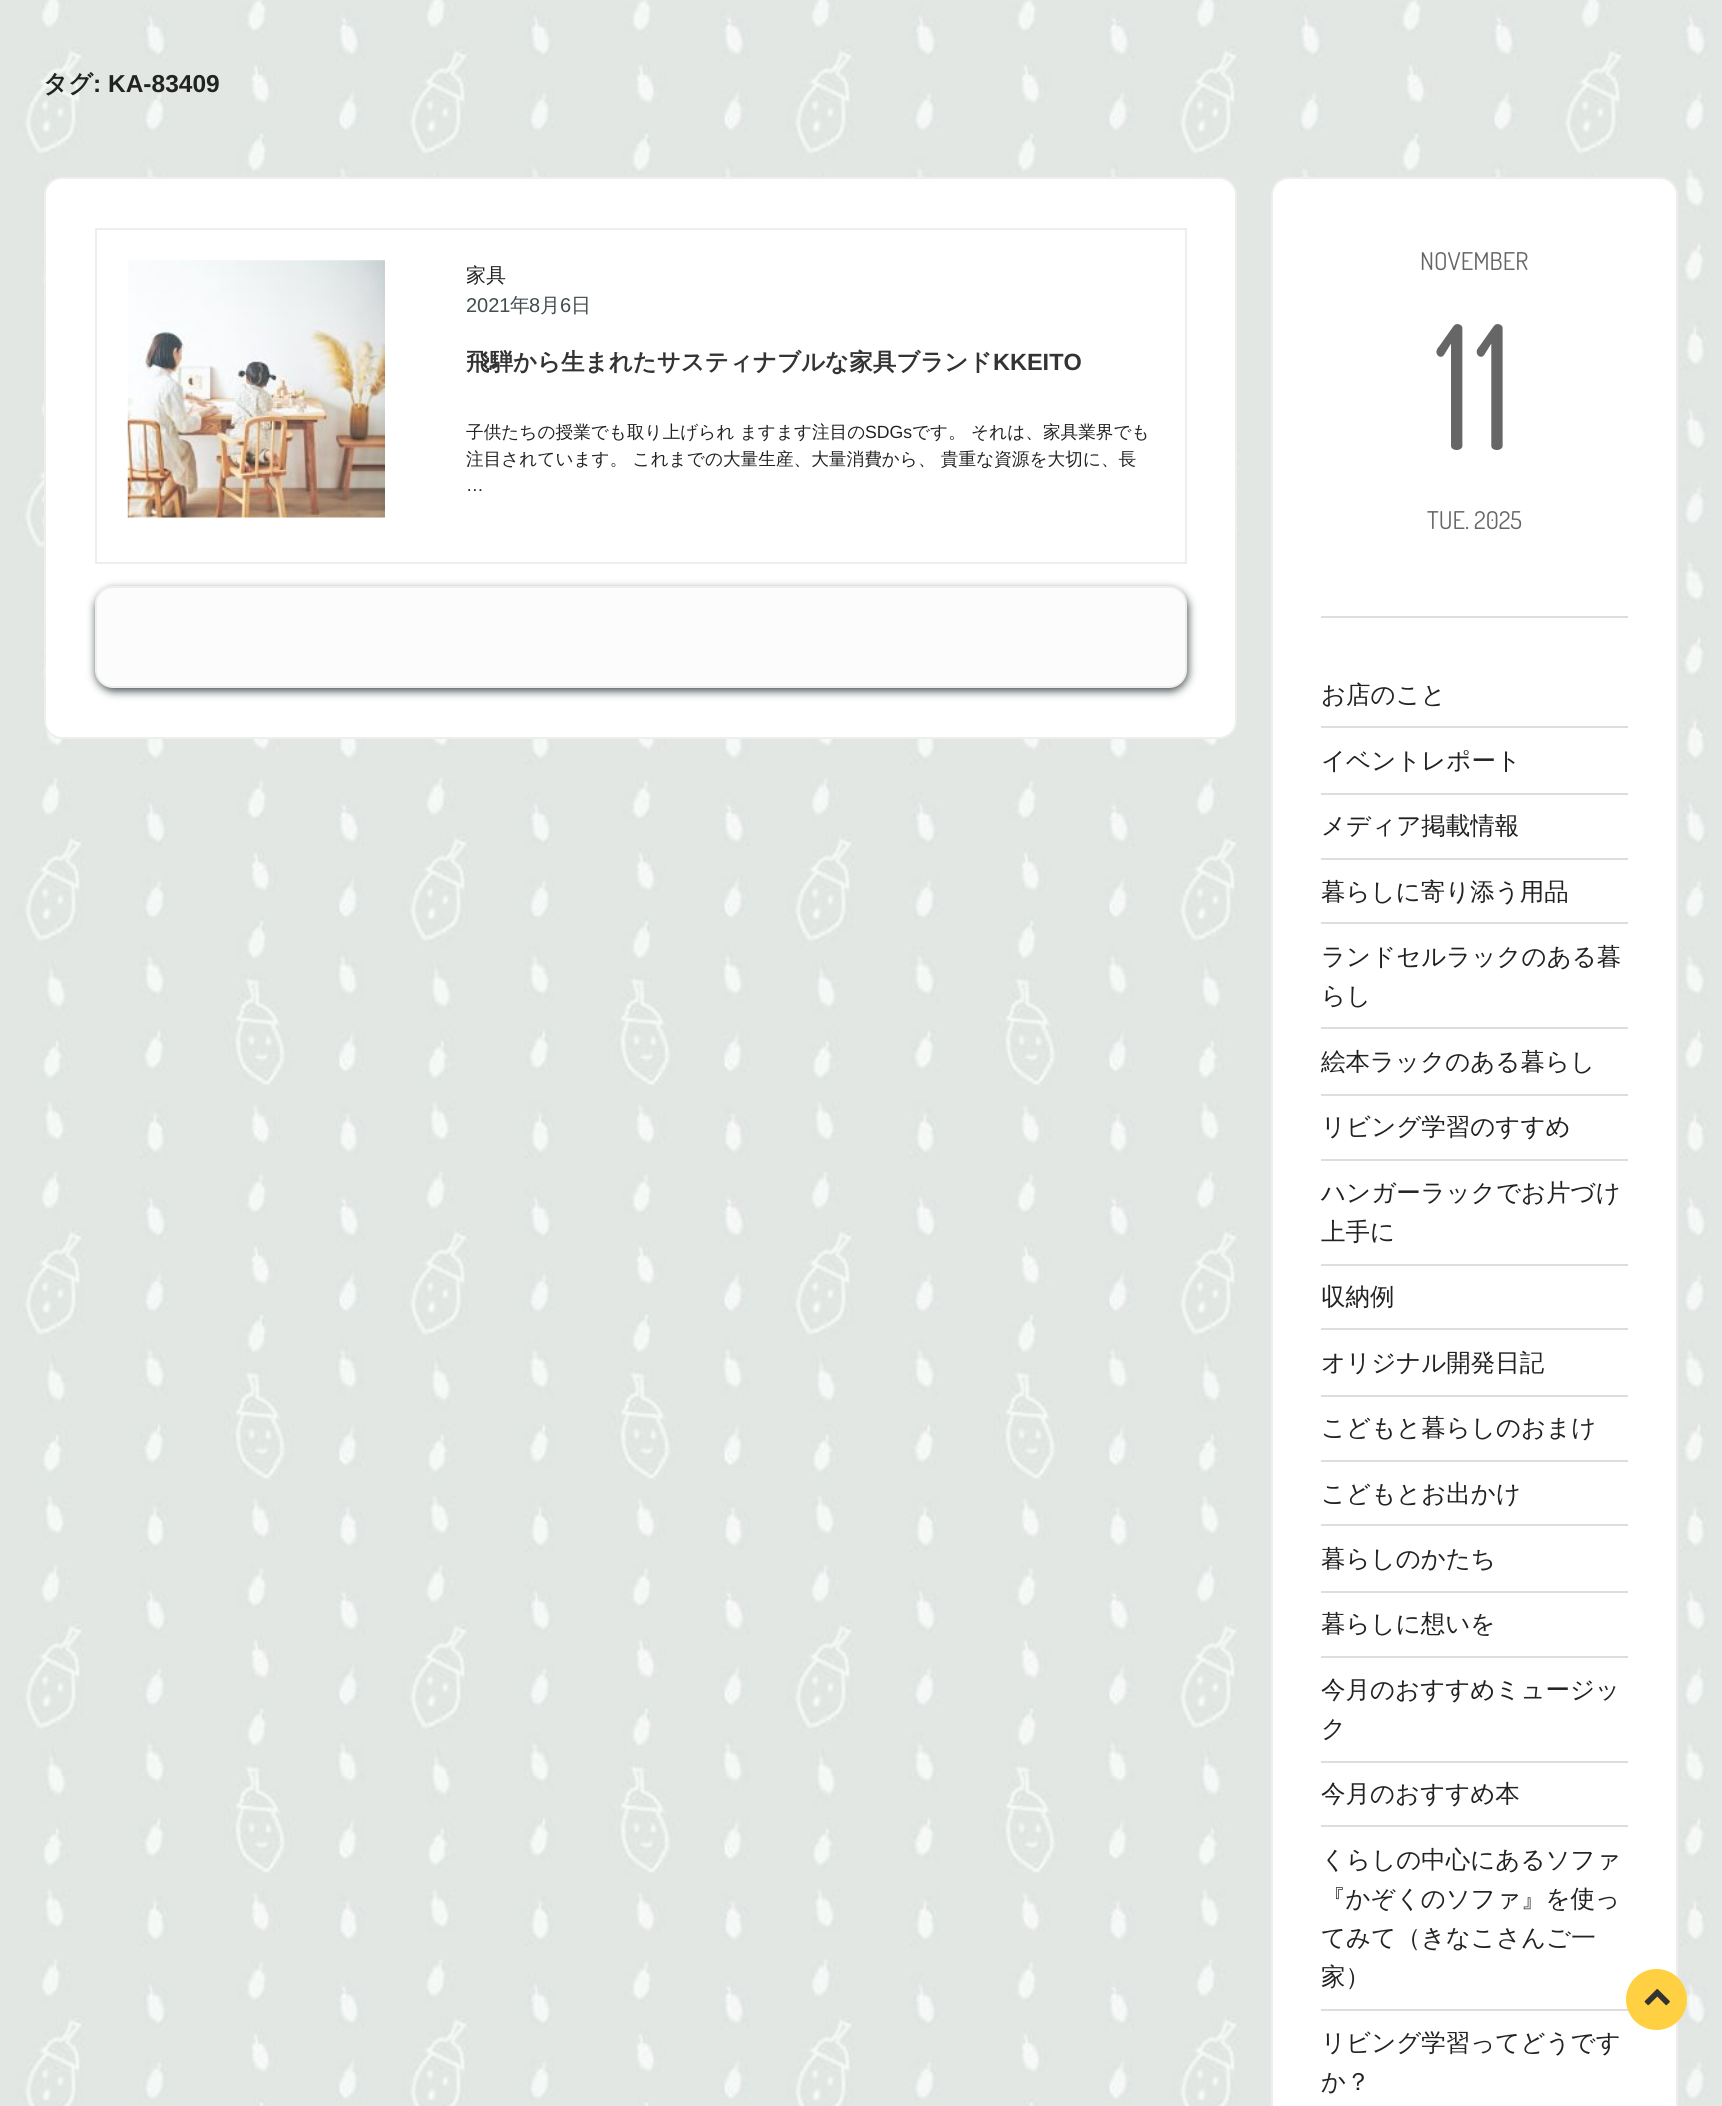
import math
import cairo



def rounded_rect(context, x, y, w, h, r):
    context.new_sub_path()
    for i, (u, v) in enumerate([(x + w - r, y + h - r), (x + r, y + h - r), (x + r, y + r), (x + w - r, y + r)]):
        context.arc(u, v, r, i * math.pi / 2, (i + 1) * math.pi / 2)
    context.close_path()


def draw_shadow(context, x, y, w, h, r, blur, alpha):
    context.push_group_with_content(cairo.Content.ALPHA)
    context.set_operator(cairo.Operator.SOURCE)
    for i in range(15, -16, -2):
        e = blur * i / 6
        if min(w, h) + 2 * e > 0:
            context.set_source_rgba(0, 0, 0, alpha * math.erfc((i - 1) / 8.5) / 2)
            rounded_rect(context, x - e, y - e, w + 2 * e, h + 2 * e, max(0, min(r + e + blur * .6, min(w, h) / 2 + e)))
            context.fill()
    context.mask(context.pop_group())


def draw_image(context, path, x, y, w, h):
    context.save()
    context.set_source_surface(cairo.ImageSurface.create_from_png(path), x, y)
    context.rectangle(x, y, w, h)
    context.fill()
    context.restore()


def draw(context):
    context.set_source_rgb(1, 1, 1)
    context.paint()
    draw_image(context, "images/1.png", 0, 0, 1722, 2106)
    context.set_source_rgb(1, 1, 1)
    rounded_rect(context, 45, 178, 1191, 560, 17)
    context.fill_preserve()
    context.set_source_rgb(238 / 255, 238 / 255, 238 / 255)
    context.stroke()
    context.rectangle(96, 229, 1090, 334)
    context.stroke()
    draw_image(context, "images/2.png", 127, 260, 258, 258)
    context.set_source_rgb(65 / 255, 76 / 255, 78 / 255)
    draw_shadow(context, 96, 590, 1092, 101, 18, 4.5, 1)
    context.set_source_rgb(252 / 255, 252 / 255, 252 / 255)
    rounded_rect(context, 96, 587, 1090, 100, 17)
    context.fill_preserve()
    context.set_source_rgb(238 / 255, 238 / 255, 238 / 255)
    context.stroke()
    context.set_source_rgb(1, 1, 1)
    rounded_rect(context, 1272, 178, 405, 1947, 17)
    context.fill_preserve()
    context.set_source_rgb(238 / 255, 238 / 255, 238 / 255)
    context.stroke()
    context.set_source_rgb(221 / 255, 221 / 255, 221 / 255)
    context.rectangle(1321, 616, 307, 2)
    context.fill()
    context.rectangle(1321, 726, 307, 2)
    context.fill()
    context.rectangle(1321, 793, 307, 2)
    context.fill()
    context.rectangle(1321, 858, 307, 2)
    context.fill()
    context.rectangle(1321, 922, 307, 2)
    context.fill()
    context.rectangle(1321, 1027, 307, 2)
    context.fill()
    context.rectangle(1321, 1094, 307, 2)
    context.fill()
    context.rectangle(1321, 1159, 307, 2)
    context.fill()
    context.rectangle(1321, 1264, 307, 2)
    context.fill()
    context.rectangle(1321, 1328, 307, 2)
    context.fill()
    context.rectangle(1321, 1395, 307, 2)
    context.fill()
    context.rectangle(1321, 1460, 307, 2)
    context.fill()
    context.rectangle(1321, 1524, 307, 2)
    context.fill()
    context.rectangle(1321, 1591, 307, 2)
    context.fill()
    context.rectangle(1321, 1656, 307, 2)
    context.fill()
    context.rectangle(1321, 1761, 307, 2)
    context.fill()
    context.rectangle(1321, 1825, 307, 2)
    context.fill()
    context.rectangle(1321, 2009, 307, 2)
    context.fill()
    context.set_source_rgb(1, 208 / 255, 65 / 255)
    context.arc(1656.5, 1999.5, 30.5, 0, 2 * math.pi)
    context.fill()
    draw_image(context, "images/3.png", 1644, 1989, 26, 17)
    context.select_font_face("WenQuanYi Zen Hei", cairo.FontSlant.NORMAL, cairo.FontWeight.BOLD)
    context.set_font_size(24.5)
    context.set_source_rgb(34 / 255, 34 / 255, 34 / 255)
    context.move_to(43, 92)
    context.show_text("タグ")
    context.select_font_face("Liberation Sans", cairo.FontSlant.NORMAL, cairo.FontWeight.BOLD)
    context.move_to(93, 92)
    context.show_text(": KA-83409")
    context.select_font_face("WenQuanYi Zen Hei Medium")
    context.set_font_size(20)
    context.move_to(466, 282)
    context.show_text("家具")
    context.select_font_face("Liberation Sans")
    context.set_source_rgb(65 / 255, 76 / 255, 78 / 255)
    context.move_to(466, 312)
    context.show_text("2021")
    context.select_font_face("WenQuanYi Zen Hei Medium")
    context.move_to(510, 312)
    context.show_text("年")
    context.select_font_face("Liberation Sans")
    context.move_to(529, 312)
    context.show_text("8")
    context.select_font_face("WenQuanYi Zen Hei Medium")
    context.move_to(540, 312)
    context.show_text("月")
    context.select_font_face("Liberation Sans")
    context.move_to(560, 312)
    context.show_text("6")
    context.select_font_face("WenQuanYi Zen Hei Medium")
    context.move_to(571, 312)
    context.show_text("日")
    context.select_font_face("WenQuanYi Zen Hei", cairo.FontSlant.NORMAL, cairo.FontWeight.BOLD)
    context.set_font_size(23.5)
    context.set_source_rgb(51 / 255, 51 / 255, 51 / 255)
    context.move_to(466, 370)
    context.show_text("飛騨から生まれたサスティナブルな家具ブランド")
    context.select_font_face("Liberation Sans", cairo.FontSlant.NORMAL, cairo.FontWeight.BOLD)
    context.move_to(993, 370)
    context.show_text("KKEITO")
    context.select_font_face("WenQuanYi Zen Hei Medium")
    context.set_font_size(17.65)
    context.set_source_rgb(34 / 255, 34 / 255, 34 / 255)
    context.move_to(466, 438)
    context.show_text("子供たちの授業でも取り上げられ ますます注目の")
    context.select_font_face("Liberation Sans")
    context.move_to(865, 438)
    context.show_text("SDGs")
    context.select_font_face("WenQuanYi Zen Hei Medium")
    context.move_to(912, 438)
    context.show_text("です。 それは、家具業界でも")
    context.move_to(466, 465)
    context.show_text("注目されています。 これまでの大量生産、大量消費から、 貴重な資源を大切に、長")
    context.select_font_face("Liberation Sans")
    context.move_to(466, 491)
    context.show_text("…")
    context.select_font_face("Dosis")
    context.set_font_size(24.5)
    context.set_source_rgb(102 / 255, 102 / 255, 102 / 255)
    context.move_to(1420, 270)
    context.show_text("NOVEMBER")
    context.set_font_size(172)
    context.move_to(1434, 450)
    context.show_text("11")
    context.set_font_size(24.5)
    context.move_to(1427, 529)
    context.show_text("TUE.")
    context.move_to(1474, 529)
    context.show_text("2025")
    context.select_font_face("WenQuanYi Zen Hei Medium")
    context.set_source_rgb(34 / 255, 34 / 255, 34 / 255)
    context.move_to(1321, 703)
    context.show_text("お店のこと")
    context.move_to(1321, 769)
    context.show_text("イベントレポート")
    context.move_to(1321, 834)
    context.show_text("メディア掲載情報")
    context.move_to(1321, 900)
    context.show_text("暮らしに寄り添う用品")
    context.move_to(1321, 965)
    context.show_text("ランドセルラックのある暮")
    context.move_to(1321, 1004)
    context.show_text("らし")
    context.move_to(1321, 1070)
    context.show_text("絵本ラックのある暮らし")
    context.move_to(1321, 1135)
    context.show_text("リビング学習のすすめ")
    context.move_to(1321, 1201)
    context.show_text("ハンガーラックでお片づけ")
    context.move_to(1321, 1240)
    context.show_text("上手に")
    context.move_to(1321, 1305)
    context.show_text("収納例")
    context.move_to(1321, 1371)
    context.show_text("オリジナル開発日記")
    context.move_to(1321, 1436)
    context.show_text("こどもと暮らしのおまけ")
    context.move_to(1321, 1502)
    context.show_text("こどもとお出かけ")
    context.move_to(1321, 1567)
    context.show_text("暮らしのかたち")
    context.move_to(1321, 1632)
    context.show_text("暮らしに想いを")
    context.move_to(1321, 1698)
    context.show_text("今月のおすすめミュージッ")
    context.move_to(1321, 1737)
    context.show_text("ク")
    context.move_to(1321, 1802)
    context.show_text("今月のおすすめ本")
    context.move_to(1321, 1868)
    context.show_text("くらしの中心にあるソファ")
    context.move_to(1321, 1907)
    context.show_text("『かぞくのソファ』を使っ")
    context.move_to(1321, 1946)
    context.show_text("てみて（きなこさんご一")
    context.move_to(1321, 1985)
    context.show_text("家）")
    context.move_to(1321, 2051)
    context.show_text("リビング学習ってどうです")
    context.move_to(1321, 2090)
    context.show_text("か？")


surface = cairo.ImageSurface(cairo.Format.RGB24, 1722, 2106)
context = cairo.Context(surface)
options = cairo.FontOptions()
options.set_hint_metrics(cairo.HintMetrics.OFF)
options.set_hint_style(cairo.HintStyle.NONE)
context.set_font_options(options)
context.set_miter_limit(4)
draw(context)
surface.write_to_png("out.png")
